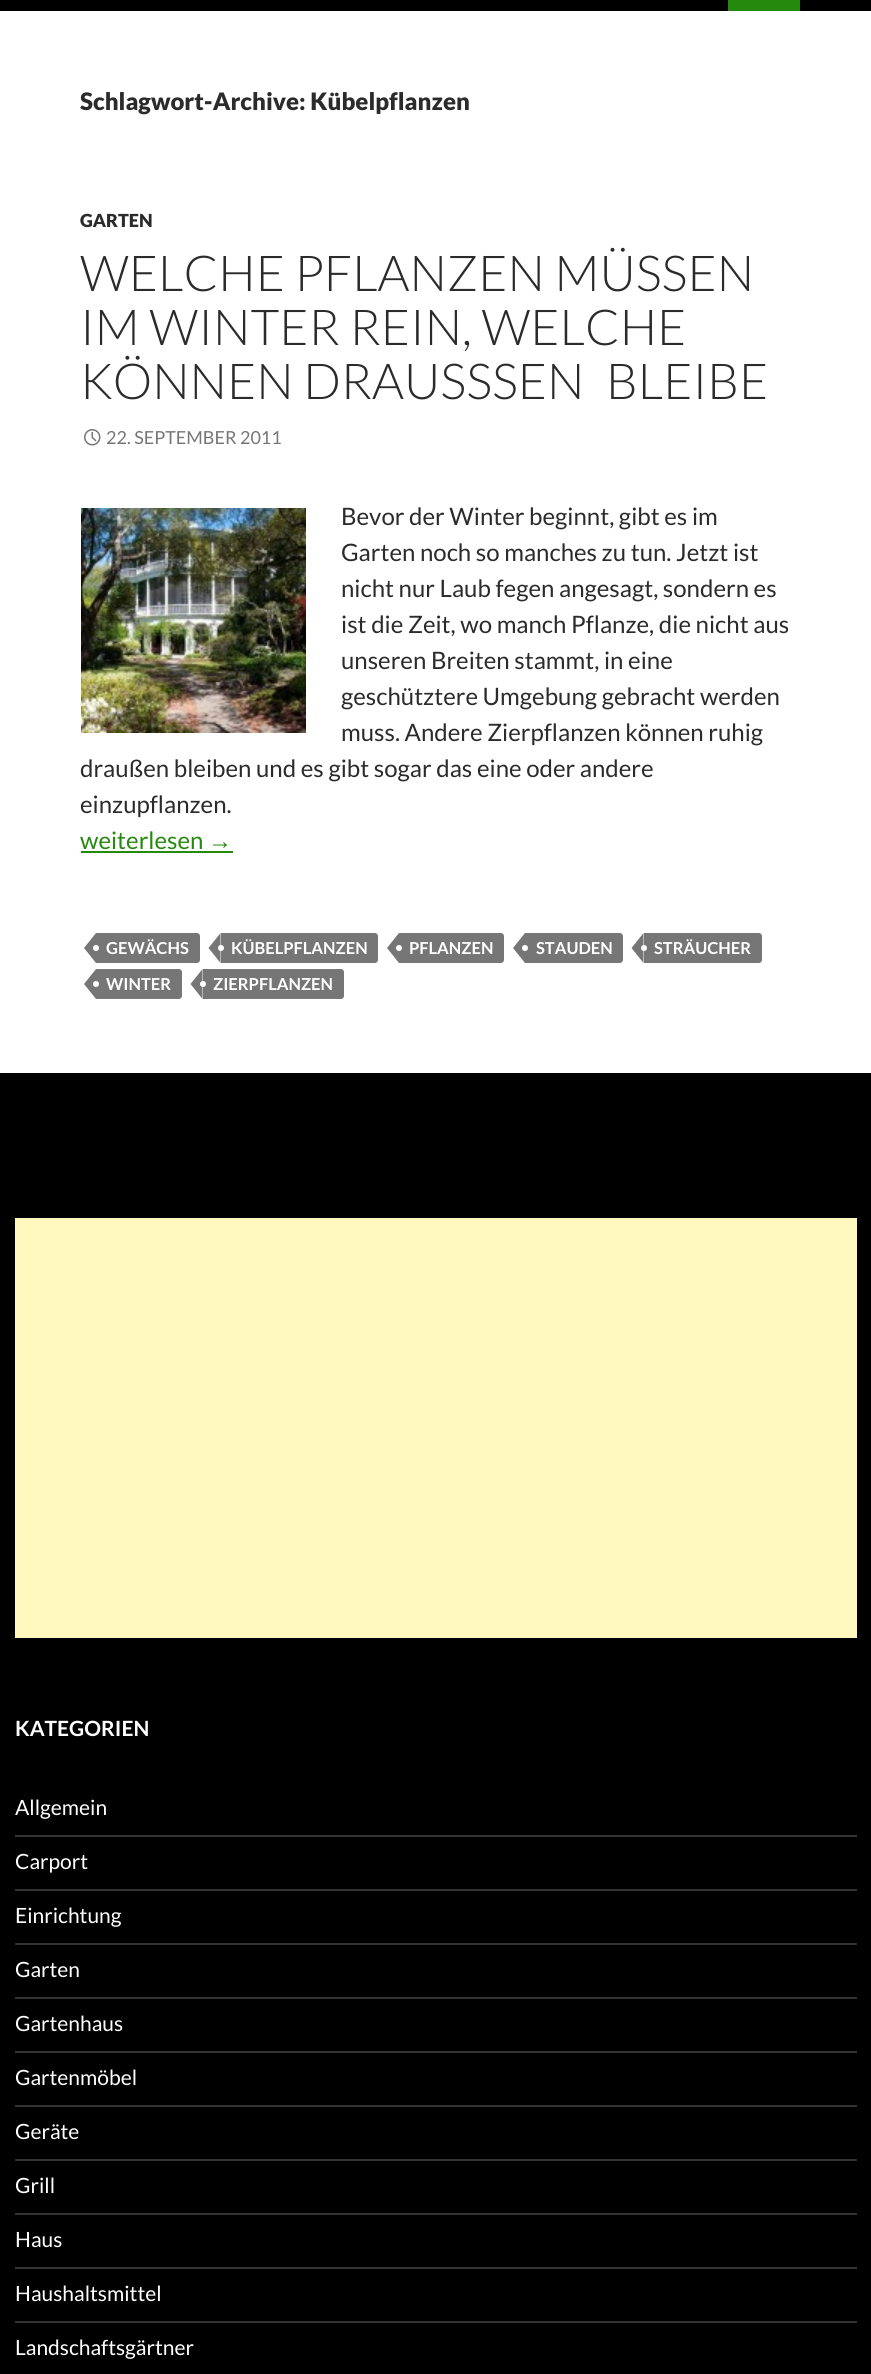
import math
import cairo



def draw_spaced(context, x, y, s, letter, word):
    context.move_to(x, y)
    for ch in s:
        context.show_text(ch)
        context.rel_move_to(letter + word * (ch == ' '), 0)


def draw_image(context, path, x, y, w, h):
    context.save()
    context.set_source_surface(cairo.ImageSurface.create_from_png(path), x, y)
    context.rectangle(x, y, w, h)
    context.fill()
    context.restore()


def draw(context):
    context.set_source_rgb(1, 1, 1)
    context.paint()
    context.set_source_rgb(0, 0, 0)
    context.rectangle(0, 0, 871, 11)
    context.fill()
    context.set_source_rgb(36 / 255, 137 / 255, 13 / 255)
    context.rectangle(728, 0, 72, 11)
    context.fill()
    draw_image(context, "images/1.png", 84, 429, 17, 17)
    draw_image(context, "images/2.png", 81, 508, 225, 225)
    context.rectangle(81, 851, 152, 2)
    context.fill()
    context.set_source_rgb(118 / 255, 118 / 255, 118 / 255)
    context.new_path()
    context.move_to(96, 933)
    context.line_to(197, 933)
    context.curve_to(198.5, 933, 200, 934.5, 200, 936)
    context.line_to(200, 960)
    context.curve_to(200, 961.5, 198.5, 963, 197, 963)
    context.line_to(96, 963)
    context.close_path()
    context.fill()
    context.new_path()
    context.move_to(96, 933)
    context.line_to(96, 963)
    context.line_to(84, 948)
    context.close_path()
    context.fill()
    context.set_source_rgb(1, 1, 1)
    context.arc(96, 948, 3, 0, 2 * math.pi)
    context.fill()
    context.set_source_rgb(118 / 255, 118 / 255, 118 / 255)
    context.new_path()
    context.move_to(221, 933)
    context.line_to(375, 933)
    context.curve_to(376.5, 933, 378, 934.5, 378, 936)
    context.line_to(378, 960)
    context.curve_to(378, 961.5, 376.5, 963, 375, 963)
    context.line_to(221, 963)
    context.close_path()
    context.fill()
    context.new_path()
    context.move_to(220.5, 933)
    context.line_to(220.5, 963)
    context.line_to(208.5, 948)
    context.close_path()
    context.fill()
    context.set_source_rgb(1, 1, 1)
    context.arc(221, 948, 3, 0, 2 * math.pi)
    context.fill()
    context.set_source_rgb(118 / 255, 118 / 255, 118 / 255)
    context.new_path()
    context.move_to(399, 933)
    context.line_to(501, 933)
    context.curve_to(502.5, 933, 504, 934.5, 504, 936)
    context.line_to(504, 960)
    context.curve_to(504, 961.5, 502.5, 963, 501, 963)
    context.line_to(399, 963)
    context.close_path()
    context.fill()
    context.new_path()
    context.move_to(399, 933)
    context.line_to(399, 963)
    context.line_to(387, 948)
    context.close_path()
    context.fill()
    context.set_source_rgb(1, 1, 1)
    context.arc(399, 948, 3, 0, 2 * math.pi)
    context.fill()
    context.set_source_rgb(118 / 255, 118 / 255, 118 / 255)
    context.new_path()
    context.move_to(525, 933)
    context.line_to(620, 933)
    context.curve_to(621.5, 933, 623, 934.5, 623, 936)
    context.line_to(623, 960)
    context.curve_to(623, 961.5, 621.5, 963, 620, 963)
    context.line_to(525, 963)
    context.close_path()
    context.fill()
    context.new_path()
    context.move_to(525, 933)
    context.line_to(525, 963)
    context.line_to(513, 948)
    context.close_path()
    context.fill()
    context.set_source_rgb(1, 1, 1)
    context.arc(525, 948, 3, 0, 2 * math.pi)
    context.fill()
    context.set_source_rgb(118 / 255, 118 / 255, 118 / 255)
    context.new_path()
    context.move_to(644, 933)
    context.line_to(759, 933)
    context.curve_to(760.5, 933, 762, 934.5, 762, 936)
    context.line_to(762, 960)
    context.curve_to(762, 961.5, 760.5, 963, 759, 963)
    context.line_to(644, 963)
    context.close_path()
    context.fill()
    context.new_path()
    context.move_to(643.5, 933)
    context.line_to(643.5, 963)
    context.line_to(631.5, 948)
    context.close_path()
    context.fill()
    context.set_source_rgb(1, 1, 1)
    context.arc(644, 948, 3, 0, 2 * math.pi)
    context.fill()
    context.set_source_rgb(118 / 255, 118 / 255, 118 / 255)
    context.new_path()
    context.move_to(96, 969)
    context.line_to(179, 969)
    context.curve_to(180.5, 969, 182, 970.5, 182, 972)
    context.line_to(182, 996)
    context.curve_to(182, 997.5, 180.5, 999, 179, 999)
    context.line_to(96, 999)
    context.close_path()
    context.fill()
    context.new_path()
    context.move_to(96, 969)
    context.line_to(96, 999)
    context.line_to(84, 984)
    context.close_path()
    context.fill()
    context.set_source_rgb(1, 1, 1)
    context.arc(96, 984, 3, 0, 2 * math.pi)
    context.fill()
    context.set_source_rgb(118 / 255, 118 / 255, 118 / 255)
    context.new_path()
    context.move_to(203, 969)
    context.line_to(341, 969)
    context.curve_to(342.5, 969, 344, 970.5, 344, 972)
    context.line_to(344, 996)
    context.curve_to(344, 997.5, 342.5, 999, 341, 999)
    context.line_to(203, 999)
    context.close_path()
    context.fill()
    context.new_path()
    context.move_to(202.5, 969)
    context.line_to(202.5, 999)
    context.line_to(190.5, 984)
    context.close_path()
    context.fill()
    context.set_source_rgb(1, 1, 1)
    context.arc(203, 984, 3, 0, 2 * math.pi)
    context.fill()
    context.set_source_rgb(0, 0, 0)
    context.rectangle(0, 1073, 871, 1301)
    context.fill()
    context.set_source_rgb(1, 249 / 255, 192 / 255)
    context.rectangle(15, 1218, 842, 420)
    context.fill()
    context.set_source_rgb(51 / 255, 51 / 255, 51 / 255)
    context.rectangle(15, 1835, 842, 2)
    context.fill()
    context.rectangle(15, 1889, 842, 2)
    context.fill()
    context.rectangle(15, 1943, 842, 2)
    context.fill()
    context.rectangle(15, 1997, 842, 2)
    context.fill()
    context.rectangle(15, 2051, 842, 2)
    context.fill()
    context.rectangle(15, 2105, 842, 2)
    context.fill()
    context.rectangle(15, 2159, 842, 2)
    context.fill()
    context.rectangle(15, 2213, 842, 2)
    context.fill()
    context.rectangle(15, 2267, 842, 2)
    context.fill()
    context.rectangle(15, 2321, 842, 2)
    context.fill()
    context.select_font_face("Lato Black")
    context.set_font_size(24)
    context.set_source_rgb(43 / 255, 43 / 255, 43 / 255)
    context.move_to(80, 110)
    context.show_text("Schlagwort-Archive: Kübelpflanzen")
    context.set_font_size(18)
    context.move_to(80, 227)
    context.show_text("GARTEN")
    context.select_font_face("Lato Light")
    context.set_font_size(49.5)
    context.move_to(80, 291)
    context.show_text("WELCHE PFLANZEN MÜSSEN")
    context.move_to(80, 345)
    context.show_text("IM WINTER REIN, WELCHE")
    context.move_to(80, 399)
    context.show_text("KÖNNEN DRAUSS")
    draw_spaced(context, 492, 399, "SEN BLEIBE", 0, 12)
    context.select_font_face("Lato")
    context.set_font_size(18)
    context.set_source_rgb(118 / 255, 118 / 255, 118 / 255)
    context.move_to(106, 444)
    context.show_text("22. SEPTEMBER 2011")
    context.set_font_size(24)
    context.set_source_rgb(43 / 255, 43 / 255, 43 / 255)
    context.move_to(341, 525)
    context.show_text("Bevor der Winter beginnt, gibt es im")
    context.move_to(341, 561)
    context.show_text("Garten noch so manches zu tun. Jetzt ist")
    context.move_to(341, 597)
    context.show_text("nicht nur Laub fegen angesagt, sondern es")
    context.move_to(341, 633)
    context.show_text("ist die Zeit, wo manch Pflanze, die nicht aus")
    context.move_to(341, 669)
    context.show_text("unseren Breiten stammt, in eine")
    context.move_to(341, 705)
    context.show_text("geschütztere Umgebung gebracht werden")
    context.move_to(341, 741)
    context.show_text("muss. Andere Zierpflanzen können ruhig")
    context.move_to(80, 777)
    context.show_text("draußen bleiben und es gibt sogar das eine oder andere")
    context.move_to(80, 813)
    context.show_text("einzupflanzen.")
    context.set_source_rgb(36 / 255, 137 / 255, 13 / 255)
    context.move_to(80, 849)
    context.show_text("weiterlesen")
    context.select_font_face("Liberation Sans")
    context.move_to(208, 849)
    context.show_text("→")
    context.select_font_face("Lato", cairo.FontSlant.NORMAL, cairo.FontWeight.BOLD)
    context.set_font_size(16.5)
    context.set_source_rgb(1, 1, 1)
    context.move_to(106, 954)
    context.show_text("GEWÄCHS")
    context.move_to(231, 954)
    context.show_text("KÜBELPFLANZEN")
    context.move_to(409, 954)
    context.show_text("PFLANZEN")
    context.move_to(536, 954)
    context.show_text("STAUDEN")
    context.move_to(654, 954)
    context.show_text("STRÄUCHER")
    context.move_to(106, 990)
    context.show_text("WINTER")
    context.move_to(213, 990)
    context.show_text("ZIERPFLANZEN")
    context.set_font_size(21)
    context.move_to(15, 1736)
    context.show_text("KATEGORIEN")
    context.select_font_face("Lato")
    context.move_to(15, 1815)
    context.show_text("Allgemein")
    context.move_to(15, 1869)
    context.show_text("Carport")
    context.move_to(15, 1923)
    context.show_text("Einrichtung")
    context.move_to(15, 1977)
    context.show_text("Garten")
    context.move_to(15, 2031)
    context.show_text("Gartenhaus")
    context.move_to(15, 2085)
    context.show_text("Gartenmöbel")
    context.move_to(15, 2139)
    context.show_text("Geräte")
    context.move_to(15, 2193)
    context.show_text("Grill")
    context.move_to(15, 2247)
    context.show_text("Haus")
    context.move_to(15, 2301)
    context.show_text("Haushaltsmittel")
    context.move_to(15, 2355)
    context.show_text("Landschaftsgärtner")


surface = cairo.ImageSurface(cairo.Format.RGB24, 871, 2374)
context = cairo.Context(surface)
options = cairo.FontOptions()
options.set_hint_metrics(cairo.HintMetrics.OFF)
options.set_hint_style(cairo.HintStyle.NONE)
context.set_font_options(options)
context.set_miter_limit(4)
draw(context)
surface.write_to_png("out.png")
